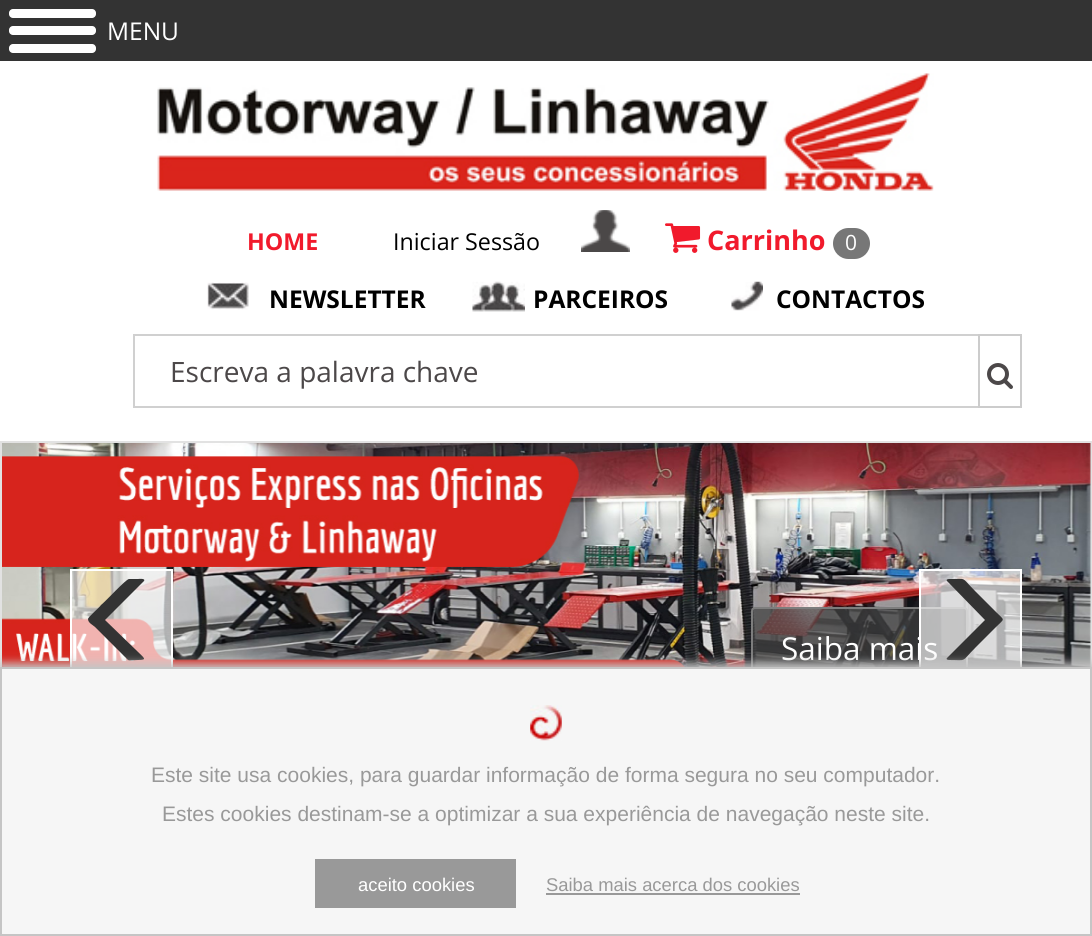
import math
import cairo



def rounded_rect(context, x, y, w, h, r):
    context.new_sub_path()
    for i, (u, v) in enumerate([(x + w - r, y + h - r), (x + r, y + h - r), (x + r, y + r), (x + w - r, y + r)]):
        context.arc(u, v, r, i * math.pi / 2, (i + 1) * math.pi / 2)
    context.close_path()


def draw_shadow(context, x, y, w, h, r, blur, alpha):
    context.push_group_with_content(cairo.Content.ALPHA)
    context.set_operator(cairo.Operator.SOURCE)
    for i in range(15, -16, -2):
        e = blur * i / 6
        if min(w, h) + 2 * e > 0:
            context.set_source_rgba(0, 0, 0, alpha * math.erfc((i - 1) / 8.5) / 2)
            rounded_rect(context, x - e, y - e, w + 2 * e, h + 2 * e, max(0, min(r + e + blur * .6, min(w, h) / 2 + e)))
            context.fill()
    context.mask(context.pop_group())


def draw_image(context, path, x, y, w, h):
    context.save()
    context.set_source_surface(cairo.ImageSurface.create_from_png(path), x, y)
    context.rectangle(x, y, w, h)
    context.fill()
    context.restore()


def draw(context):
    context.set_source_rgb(1, 1, 1)
    context.paint()
    context.set_source_rgb(51 / 255, 51 / 255, 51 / 255)
    context.rectangle(0, 0, 1092, 61)
    context.fill()
    context.set_source_rgb(1, 1, 1)
    rounded_rect(context, 9, 9, 87, 9, 4)
    context.fill()
    rounded_rect(context, 9, 26, 87, 9, 4)
    context.fill()
    rounded_rect(context, 9, 44, 87, 9, 4)
    context.fill()
    draw_image(context, "images/1.png", 157, 73, 777, 118)
    draw_image(context, "images/2.png", 581, 210, 49, 42)
    draw_image(context, "images/3.png", 665, 223, 36, 30)
    context.set_source_rgb(119 / 255, 119 / 255, 119 / 255)
    rounded_rect(context, 833, 228, 37, 31, 15.5)
    context.fill()
    draw_image(context, "images/4.png", 207, 282, 42, 28)
    draw_image(context, "images/5.png", 472, 281, 53, 31)
    draw_image(context, "images/6.png", 731, 281, 32, 30)
    context.rectangle(134, 335, 887, 72)
    context.set_source_rgb(208 / 255, 208 / 255, 208 / 255)
    context.stroke()
    context.rectangle(979, 335, 42, 72)
    context.set_source_rgb(204 / 255, 204 / 255, 204 / 255)
    context.stroke()
    draw_image(context, "images/7.png", 987, 363, 26, 26)
    context.rectangle(1, 442, 1090, 334)
    context.set_source_rgb(226 / 255, 226 / 255, 226 / 255)
    context.stroke()
    draw_image(context, "images/8.png", 2, 443, 1089, 224)
    context.set_source_rgba(1, 1, 1, 0.65)
    context.rectangle(72, 571, 99, 96)
    context.fill()
    context.rectangle(71, 570, 101, 99)
    context.set_source_rgb(1, 1, 1)
    context.stroke()
    context.set_source_rgb(51 / 255, 51 / 255, 51 / 255)
    context.new_path()
    context.move_to(129, 579)
    context.line_to(138, 579)
    context.curve_to(138, 579, 146, 578, 144, 581)
    context.line_to(105, 620)
    context.line_to(137, 651)
    context.curve_to(144, 658, 148, 660, 138, 660)
    context.curve_to(135, 660, 130, 661, 128, 660)
    context.line_to(95, 627)
    context.curve_to(93, 625, 88, 623, 88, 619)
    context.curve_to(88, 617, 100, 607, 101, 605)
    context.curve_to(105, 602, 126, 579, 129, 579)
    context.close_path()
    context.fill()
    context.set_source_rgba(66 / 255, 66 / 255, 66 / 255, 0.72)
    rounded_rect(context, 752, 608, 215, 79, 3)
    context.fill_preserve()
    context.set_source_rgb(125 / 255, 125 / 255, 125 / 255)
    context.stroke()
    context.select_font_face("Open Sans")
    context.set_font_size(24.5)
    context.set_source_rgb(1, 1, 1)
    context.move_to(107, 40)
    context.show_text("MENU")
    context.select_font_face("Open Sans", cairo.FontSlant.NORMAL, cairo.FontWeight.BOLD)
    context.set_font_size(23.25)
    context.set_source_rgb(241 / 255, 26 / 255, 44 / 255)
    context.move_to(247, 250)
    context.show_text("HOME")
    context.select_font_face("Open Sans")
    context.set_source_rgb(0, 0, 0)
    context.move_to(393, 250)
    context.show_text("Iniciar Sessão")
    context.select_font_face("Open Sans", cairo.FontSlant.NORMAL, cairo.FontWeight.BOLD)
    context.set_font_size(27)
    context.set_source_rgb(241 / 255, 26 / 255, 44 / 255)
    context.move_to(707, 250)
    context.show_text("Carrinho")
    context.select_font_face("Open Sans")
    context.set_font_size(21)
    context.set_source_rgb(1, 1, 1)
    context.move_to(845, 250)
    context.show_text("0")
    context.select_font_face("Open Sans", cairo.FontSlant.NORMAL, cairo.FontWeight.BOLD)
    context.set_font_size(24.5)
    context.set_source_rgb(0, 0, 0)
    context.move_to(269, 308)
    context.show_text("NEWSLETTER")
    context.move_to(533, 308)
    context.show_text("PARCEIROS")
    context.move_to(776, 308)
    context.show_text("CONTACTOS")
    context.select_font_face("Open Sans")
    context.set_font_size(28)
    context.set_source_rgb(76 / 255, 72 / 255, 73 / 255)
    context.move_to(170, 382)
    context.show_text("Escreva a palavra chave")
    context.set_font_size(31.5)
    context.set_source_rgb(1, 1, 1)
    context.move_to(781, 660)
    context.show_text("Saiba mais")
    context.set_source_rgba(1, 1, 1, 0.65)
    context.rectangle(921, 571, 99, 96)
    context.fill()
    context.rectangle(920, 570, 101, 99)
    context.set_source_rgb(1, 1, 1)
    context.stroke()
    context.set_source_rgb(51 / 255, 51 / 255, 51 / 255)
    context.new_path()
    context.move_to(949, 579)
    context.curve_to(968, 579, 960, 576, 976, 592)
    context.line_to(996, 612)
    context.curve_to(1005, 621, 1005, 618, 996, 627)
    context.line_to(976, 647)
    context.curve_to(960, 663, 968, 660, 949, 660)
    context.curve_to(947, 660, 946, 659, 947, 658)
    context.line_to(985, 620)
    context.line_to(947, 581)
    context.curve_to(946, 580, 947, 579, 949, 579)
    context.close_path()
    context.fill()
    context.set_source_rgb(197 / 255, 197 / 255, 197 / 255)
    draw_shadow(context, 0, 663, 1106, 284, 0, 4.5, 1)
    context.set_source_rgb(246 / 255, 246 / 255, 246 / 255)
    context.rectangle(1, 668, 1090, 267)
    context.fill_preserve()
    context.set_source_rgb(197 / 255, 197 / 255, 197 / 255)
    context.stroke()
    draw_image(context, "images/9.png", 530, 705, 32, 36)
    context.select_font_face("Liberation Sans")
    context.set_font_size(21)
    context.set_source_rgb(153 / 255, 153 / 255, 153 / 255)
    context.move_to(151, 782)
    context.show_text("Este site usa cookies, para guardar informação de forma segura no seu computador.")
    context.move_to(162, 821)
    context.show_text("Estes cookies destinam-se a optimizar a sua experiência de navegação neste site.")
    context.rectangle(315, 859, 201, 49)
    context.fill()
    context.set_font_size(18.4)
    context.set_source_rgb(1, 1, 1)
    context.move_to(358, 891)
    context.show_text("aceito cookies")
    context.set_source_rgb(153 / 255, 153 / 255, 153 / 255)
    context.move_to(546, 891)
    context.show_text("Saiba mais acerca dos cookies")
    context.rectangle(546, 893, 254, 2)
    context.fill()


surface = cairo.ImageSurface(cairo.Format.RGB24, 1092, 936)
context = cairo.Context(surface)
options = cairo.FontOptions()
options.set_hint_metrics(cairo.HintMetrics.OFF)
options.set_hint_style(cairo.HintStyle.NONE)
context.set_font_options(options)
context.set_miter_limit(4)
draw(context)
surface.write_to_png("out.png")
